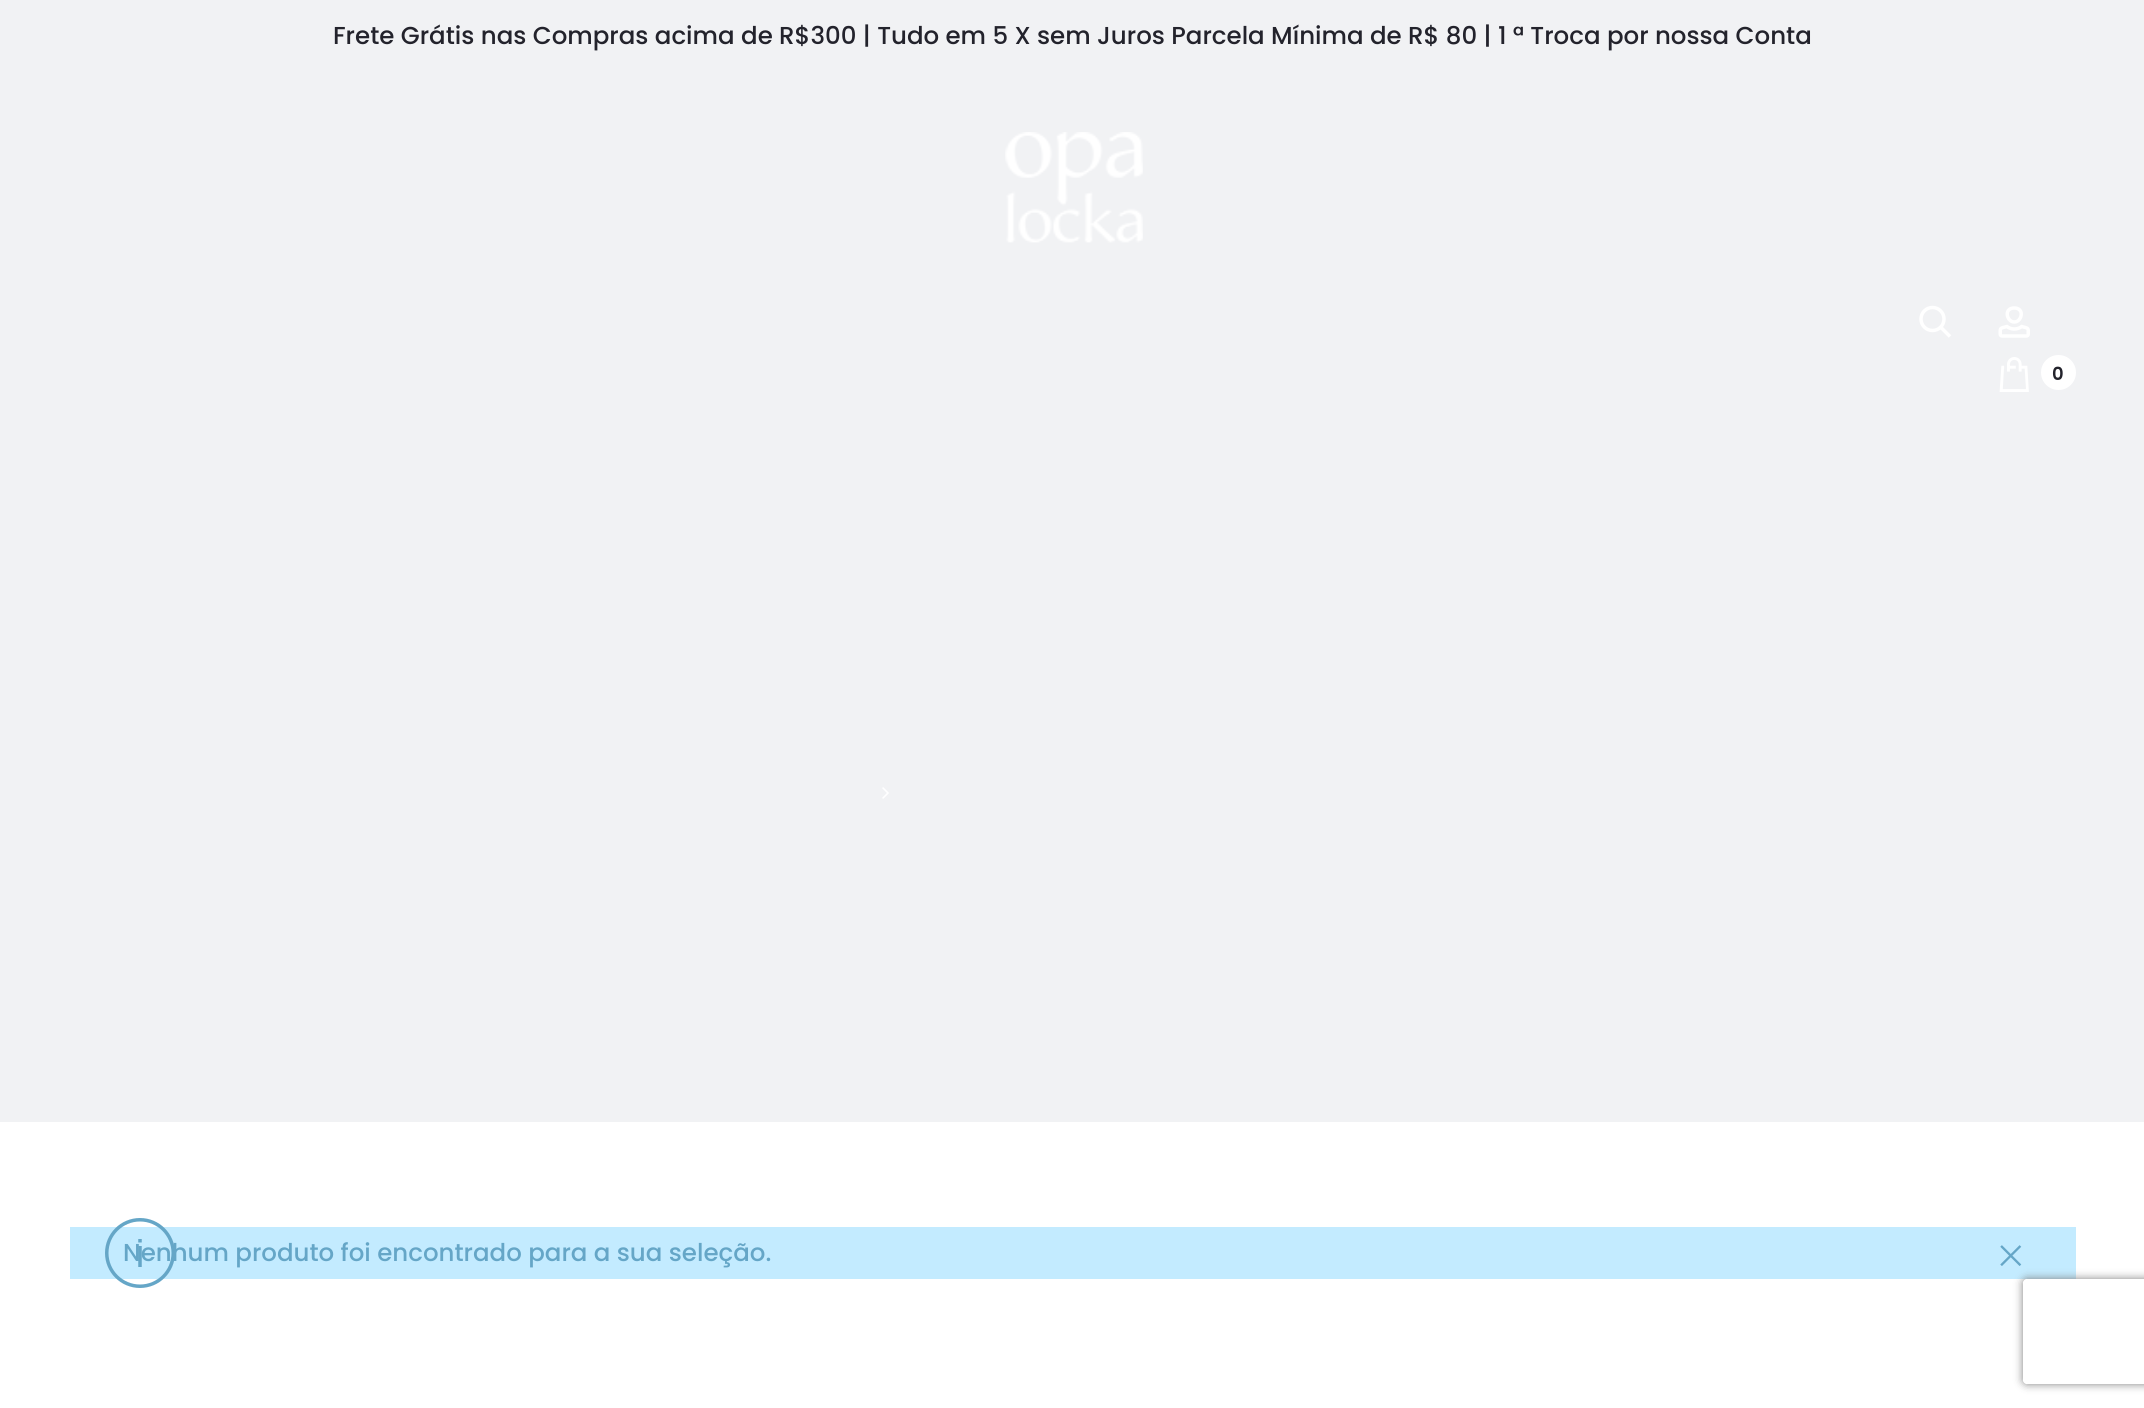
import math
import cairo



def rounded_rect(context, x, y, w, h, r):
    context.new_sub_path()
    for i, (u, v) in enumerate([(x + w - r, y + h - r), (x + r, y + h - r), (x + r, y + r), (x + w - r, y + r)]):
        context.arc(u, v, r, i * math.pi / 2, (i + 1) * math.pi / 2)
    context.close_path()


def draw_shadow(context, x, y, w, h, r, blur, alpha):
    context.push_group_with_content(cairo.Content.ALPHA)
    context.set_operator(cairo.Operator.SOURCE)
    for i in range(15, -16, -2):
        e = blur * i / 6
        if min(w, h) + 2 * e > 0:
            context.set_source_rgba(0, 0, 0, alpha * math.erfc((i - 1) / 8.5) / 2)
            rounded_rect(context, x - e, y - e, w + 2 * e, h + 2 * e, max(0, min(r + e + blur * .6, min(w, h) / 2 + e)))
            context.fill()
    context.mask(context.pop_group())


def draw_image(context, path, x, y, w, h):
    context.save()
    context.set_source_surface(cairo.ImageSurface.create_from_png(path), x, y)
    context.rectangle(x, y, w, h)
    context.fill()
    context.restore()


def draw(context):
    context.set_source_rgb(1, 1, 1)
    context.paint()
    context.set_source_rgb(241 / 255, 242 / 255, 244 / 255)
    context.rectangle(0, 0, 2144, 1122)
    context.fill()
    draw_image(context, "images/1.png", 1005, 132, 138, 111)
    context.arc(1932.5, 319, 11.5, 0, 2 * math.pi)
    context.set_source_rgb(1, 1, 1)
    context.set_line_width(3.5)
    context.stroke()
    context.new_path()
    context.move_to(1940.5, 327)
    context.line_to(1950, 336.5)
    context.stroke()
    draw_image(context, "images/2.png", 1998, 306, 32, 32)
    draw_image(context, "images/3.png", 1999, 357, 30, 35)
    context.arc(2058.5, 372.5, 17.5, 0, 2 * math.pi)
    context.fill()
    draw_image(context, "images/4.png", 882, 787, 7, 12)
    context.set_source_rgb(195 / 255, 235 / 255, 1)
    context.rectangle(70, 1227, 2006, 52)
    context.fill()
    draw_image(context, "images/6.png", 2000, 1245, 22, 21)
    context.save()
    context.set_fill_rule(cairo.FillRule.EVEN_ODD)
    context.new_path()
    context.move_to(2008, 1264)
    context.line_to(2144, 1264)
    context.line_to(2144, 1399)
    context.line_to(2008, 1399)
    context.close_path()
    context.move_to(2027, 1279)
    context.line_to(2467, 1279)
    context.curve_to(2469, 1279, 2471, 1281, 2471, 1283)
    context.line_to(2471, 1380)
    context.curve_to(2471, 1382, 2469, 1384, 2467, 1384)
    context.line_to(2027, 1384)
    context.curve_to(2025, 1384, 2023, 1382, 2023, 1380)
    context.line_to(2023, 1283)
    context.curve_to(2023, 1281, 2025, 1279, 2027, 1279)
    context.close_path()
    context.clip()
    context.set_source_rgb(128 / 255, 128 / 255, 128 / 255)
    draw_shadow(context, 2023, 1279, 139, 105, 4, 4.5, 1)
    context.restore()
    context.select_font_face("Poppins Medium")
    context.set_font_size(24.5)
    context.set_source_rgb(35 / 255, 35 / 255, 44 / 255)
    context.move_to(333, 44)
    context.show_text("Frete Grátis nas Compras acima de R$300 | Tudo em 5 X sem Juros Parcela Mínima de R$ 80 | 1 ª Troca por nossa Conta")
    context.select_font_face("Poppins SemiBold")
    context.set_font_size(18)
    context.move_to(2052, 380)
    context.show_text("0")
    context.select_font_face("Poppins Medium")
    context.set_font_size(24.5)
    context.set_source_rgb(101 / 255, 166 / 255, 199 / 255)
    context.move_to(123, 1261)
    context.show_text("Nenhum produto foi encontrado para a sua seleção.")
    draw_image(context, "images/5.png", 105, 1218, 69, 70)


surface = cairo.ImageSurface(cairo.Format.RGB24, 2144, 1408)
context = cairo.Context(surface)
options = cairo.FontOptions()
options.set_hint_metrics(cairo.HintMetrics.OFF)
options.set_hint_style(cairo.HintStyle.NONE)
context.set_font_options(options)
context.set_miter_limit(4)
draw(context)
surface.write_to_png("out.png")
